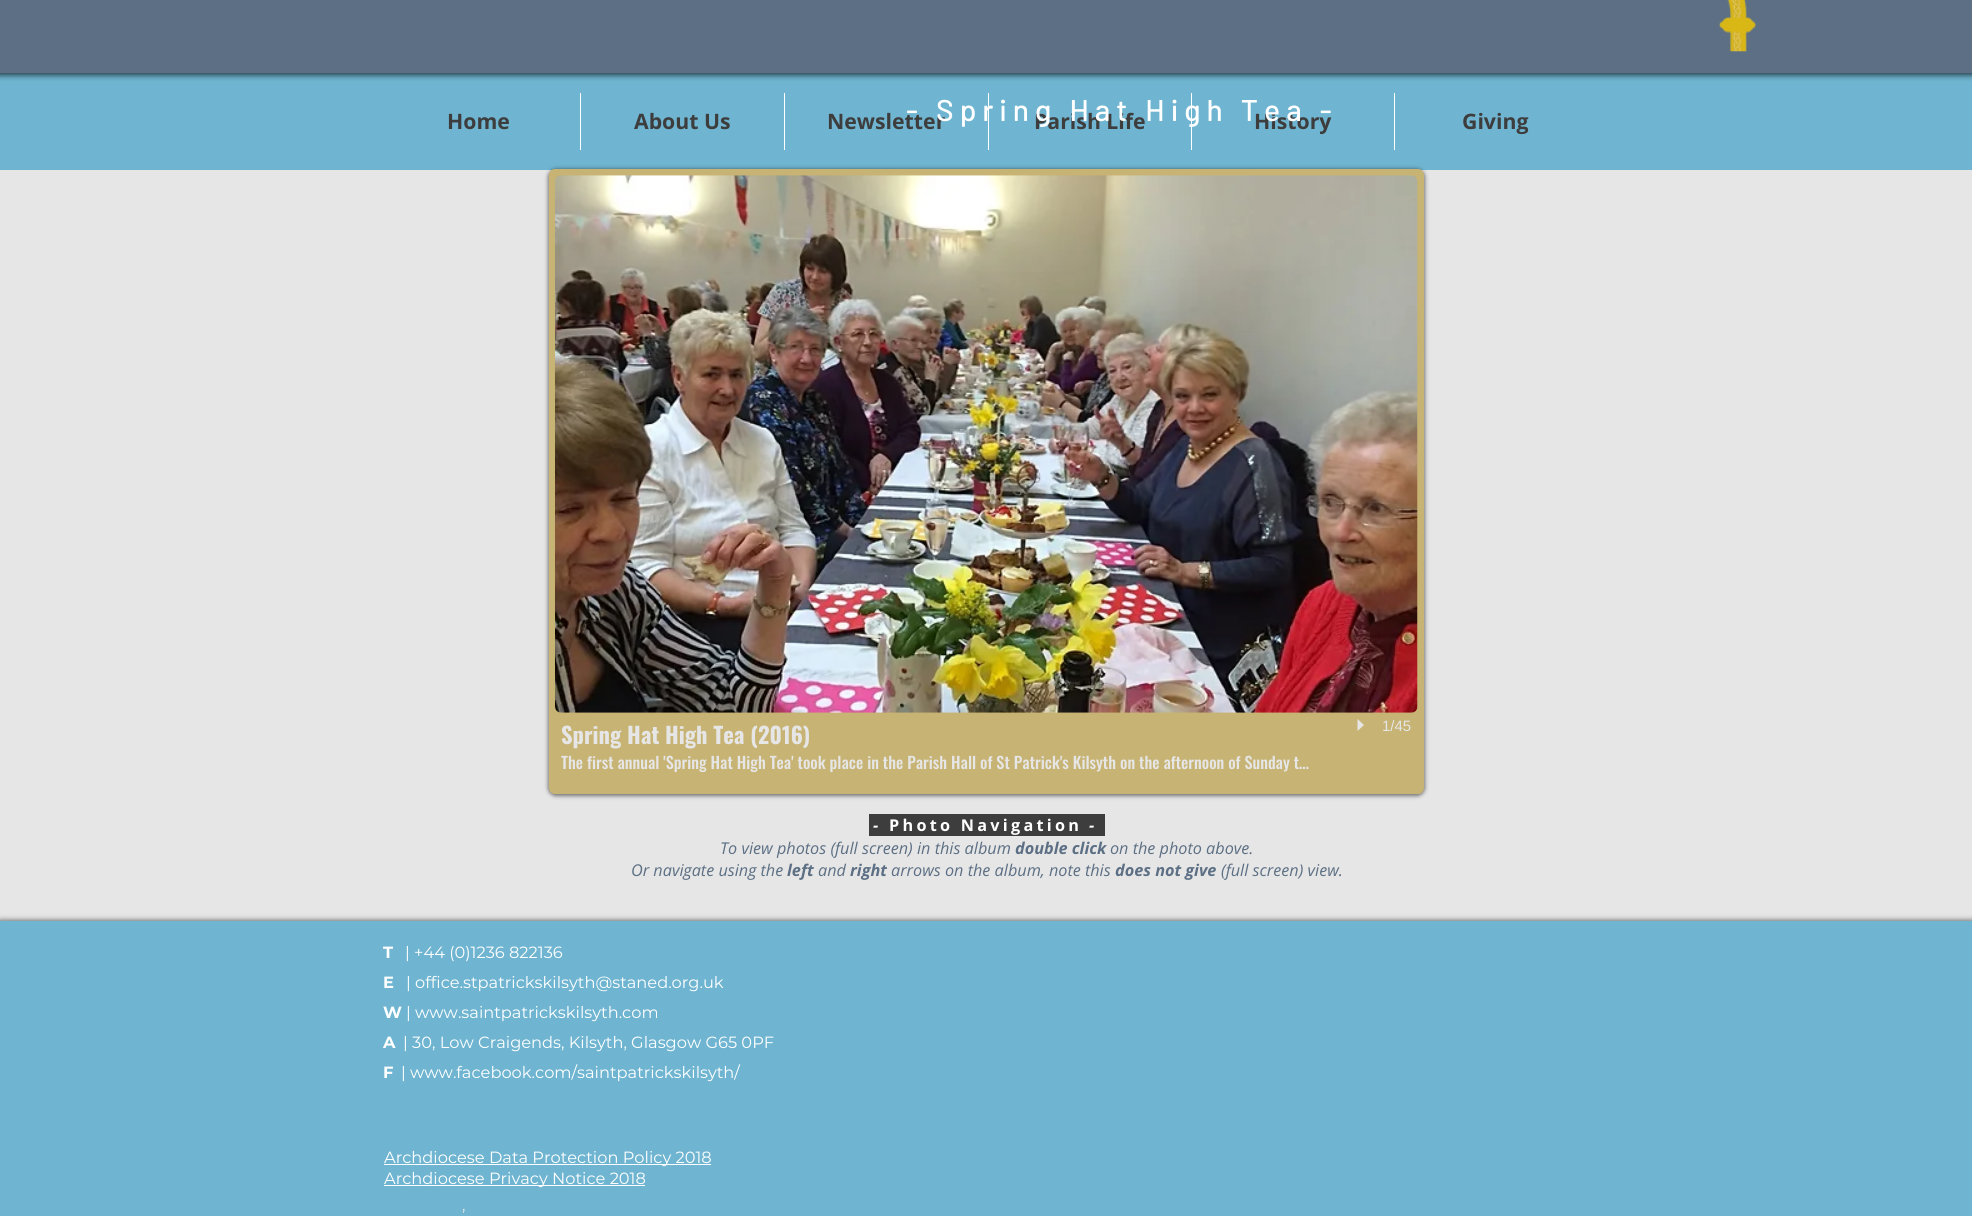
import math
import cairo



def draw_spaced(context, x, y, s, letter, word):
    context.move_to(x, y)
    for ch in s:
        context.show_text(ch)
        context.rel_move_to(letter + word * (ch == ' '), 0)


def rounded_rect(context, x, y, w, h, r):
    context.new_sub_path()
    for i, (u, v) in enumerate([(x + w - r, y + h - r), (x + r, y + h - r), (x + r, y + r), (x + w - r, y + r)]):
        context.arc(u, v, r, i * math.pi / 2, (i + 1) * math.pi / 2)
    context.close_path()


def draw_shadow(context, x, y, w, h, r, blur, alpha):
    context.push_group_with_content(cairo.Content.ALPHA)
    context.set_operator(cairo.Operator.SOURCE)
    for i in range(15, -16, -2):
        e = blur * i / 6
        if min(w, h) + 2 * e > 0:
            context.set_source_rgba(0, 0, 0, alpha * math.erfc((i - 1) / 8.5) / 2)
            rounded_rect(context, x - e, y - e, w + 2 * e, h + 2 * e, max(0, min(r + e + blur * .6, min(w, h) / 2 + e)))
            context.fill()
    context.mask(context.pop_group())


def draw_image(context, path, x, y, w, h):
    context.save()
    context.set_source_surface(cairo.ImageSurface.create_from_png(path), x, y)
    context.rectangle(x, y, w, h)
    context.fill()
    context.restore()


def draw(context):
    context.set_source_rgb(230 / 255, 230 / 255, 230 / 255)
    context.paint()
    context.set_source_rgb(111 / 255, 181 / 255, 209 / 255)
    context.rectangle(0, 73, 1972, 97)
    context.fill()
    context.set_source_rgb(0, 0, 0)
    draw_shadow(context, 548, 169, 877, 627, 8, 2, 0.5)
    context.set_source_rgb(199 / 255, 179 / 255, 115 / 255)
    rounded_rect(context, 549, 169, 875, 625, 6)
    context.fill()
    draw_image(context, "images/1.png", 555, 175, 863, 538)
    context.set_source_rgb(230 / 255, 230 / 255, 230 / 255)
    context.new_path()
    context.move_to(1357.5, 731)
    context.line_to(1357.5, 719)
    context.line_to(1364, 725)
    context.close_path()
    context.fill()
    context.set_source_rgb(61 / 255, 61 / 255, 61 / 255)
    context.rectangle(869, 814, 236, 22)
    context.fill()
    context.set_source_rgb(0, 0, 0)
    draw_shadow(context, -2, -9, 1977, 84, 0, 3, 0.7)
    context.set_source_rgb(92 / 255, 111 / 255, 132 / 255)
    context.rectangle(0, 0, 1972, 73)
    context.fill()
    draw_image(context, "images/2.png", 1718, 0, 39, 52)
    context.set_source_rgb(1, 1, 1)
    context.rectangle(580, 93, 1, 57)
    context.fill()
    context.rectangle(784, 93, 1, 57)
    context.fill()
    context.rectangle(988, 93, 1, 57)
    context.fill()
    context.rectangle(1191, 93, 1, 57)
    context.fill()
    context.rectangle(1394, 93, 1, 57)
    context.fill()
    context.set_source_rgb(0, 0, 0)
    draw_shadow(context, 0, 921, 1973, 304, 0, 3, 0.7)
    context.set_source_rgb(111 / 255, 181 / 255, 209 / 255)
    context.rectangle(0, 921, 1972, 295)
    context.fill()
    context.set_source_rgb(1, 1, 1)
    context.rectangle(384, 1164, 327, 1)
    context.fill()
    context.rectangle(384, 1185, 261, 1)
    context.fill()
    context.select_font_face("Oswald", cairo.FontSlant.NORMAL, cairo.FontWeight.BOLD)
    context.set_font_size(22.5)
    context.set_source_rgb(230 / 255, 230 / 255, 230 / 255)
    context.move_to(561, 744)
    context.show_text("Spring Hat High Tea (2016)")
    context.select_font_face("Oswald Medium")
    context.set_font_size(16.25)
    context.move_to(561, 769)
    context.show_text("The first annual 'Spring Hat High Tea' took place in the Parish Hall of St Patrick's Kilsyth on the afternoon of Sunday t…")
    context.select_font_face("Liberation Sans")
    context.set_font_size(15)
    context.move_to(1382, 731)
    context.show_text("1/45")
    context.select_font_face("Open Sans", cairo.FontSlant.ITALIC, cairo.FontWeight.BOLD)
    context.set_font_size(16.25)
    context.set_source_rgb(1, 1, 1)
    draw_spaced(context, 873, 831, "-", 3.25, 0)
    context.select_font_face("Open Sans", cairo.FontSlant.NORMAL, cairo.FontWeight.BOLD)
    draw_spaced(context, 889, 831, "Photo Navigation", 3.25, 0)
    context.select_font_face("Open Sans", cairo.FontSlant.ITALIC, cairo.FontWeight.BOLD)
    draw_spaced(context, 1089, 831, "-", 3.25, 0)
    context.select_font_face("Open Sans", cairo.FontSlant.ITALIC)
    context.set_source_rgb(92 / 255, 111 / 255, 132 / 255)
    context.move_to(720, 854)
    context.show_text("To view photos (full screen) in this album")
    context.select_font_face("Open Sans", cairo.FontSlant.ITALIC, cairo.FontWeight.BOLD)
    context.move_to(1015, 854)
    context.show_text("double click")
    context.select_font_face("Open Sans", cairo.FontSlant.ITALIC)
    context.move_to(1110, 854)
    context.show_text("on the photo above.")
    context.move_to(631, 876)
    context.show_text("Or navigate using the")
    context.select_font_face("Open Sans", cairo.FontSlant.ITALIC, cairo.FontWeight.BOLD)
    context.move_to(787, 876)
    context.show_text("left")
    context.select_font_face("Open Sans", cairo.FontSlant.ITALIC)
    context.move_to(818, 876)
    context.show_text("and")
    context.select_font_face("Open Sans", cairo.FontSlant.ITALIC, cairo.FontWeight.BOLD)
    context.move_to(850, 876)
    context.show_text("right")
    context.select_font_face("Open Sans", cairo.FontSlant.ITALIC)
    context.move_to(891, 876)
    context.show_text("arrows on the album, note this")
    context.select_font_face("Open Sans", cairo.FontSlant.ITALIC, cairo.FontWeight.BOLD)
    context.move_to(1115, 876)
    context.show_text("does not give")
    context.select_font_face("Open Sans", cairo.FontSlant.ITALIC)
    context.move_to(1221, 876)
    context.show_text("(full screen) view.")
    context.select_font_face("Open Sans", cairo.FontSlant.NORMAL, cairo.FontWeight.BOLD)
    context.set_font_size(21.25)
    context.set_source_rgb(61 / 255, 61 / 255, 61 / 255)
    context.move_to(447, 129)
    context.show_text("Home")
    context.move_to(634, 129)
    context.show_text("About Us")
    context.move_to(827, 129)
    context.show_text("Newsletter")
    context.move_to(1034, 129)
    context.show_text("Parish Life")
    context.move_to(1254, 129)
    context.show_text("History")
    context.select_font_face("Barlow Medium")
    context.set_font_size(30)
    context.set_source_rgb(1, 1, 1)
    draw_spaced(context, 906, 121, "- Spring Hat High Tea -", 6, 0)
    context.select_font_face("Open Sans", cairo.FontSlant.NORMAL, cairo.FontWeight.BOLD)
    context.set_font_size(21.25)
    context.set_source_rgb(61 / 255, 61 / 255, 61 / 255)
    context.move_to(1462, 129)
    context.show_text("Giving")
    context.select_font_face("Montserrat", cairo.FontSlant.NORMAL, cairo.FontWeight.BOLD)
    context.set_font_size(16.25)
    context.set_source_rgb(1, 1, 1)
    context.move_to(383, 958)
    context.show_text("T")
    context.select_font_face("Montserrat")
    context.move_to(405, 958)
    context.show_text("| +44 (0)1236 822136")
    context.select_font_face("Montserrat", cairo.FontSlant.NORMAL, cairo.FontWeight.BOLD)
    context.move_to(383, 988)
    context.show_text("E")
    context.select_font_face("Montserrat")
    context.move_to(406, 988)
    context.show_text("| office.stpatrickskilsyth@staned.org.uk")
    context.select_font_face("Montserrat", cairo.FontSlant.NORMAL, cairo.FontWeight.BOLD)
    context.move_to(383, 1018)
    context.show_text("W")
    context.select_font_face("Montserrat")
    context.move_to(406, 1018)
    context.show_text("| www.saintpatrickskilsyth.com")
    context.select_font_face("Montserrat", cairo.FontSlant.NORMAL, cairo.FontWeight.BOLD)
    context.move_to(383, 1048)
    context.show_text("A")
    context.select_font_face("Montserrat")
    context.move_to(403, 1048)
    context.show_text("| 30, Low Craigends, Kilsyth, Glasgow G65 0PF")
    context.select_font_face("Montserrat", cairo.FontSlant.NORMAL, cairo.FontWeight.BOLD)
    context.move_to(383, 1078)
    context.show_text("F")
    context.select_font_face("Montserrat")
    context.move_to(401, 1078)
    context.show_text("| www.facebook.com/saintpatrickskilsyth/")
    context.move_to(384, 1163)
    context.show_text("Archdiocese Data Protection Policy 2018")
    context.move_to(384, 1184)
    context.show_text("Archdiocese Privacy Notice 2018")
    context.set_source_rgb(230 / 255, 230 / 255, 230 / 255)
    context.move_to(462, 1221)
    context.show_text("’")


surface = cairo.ImageSurface(cairo.Format.RGB24, 1972, 1216)
context = cairo.Context(surface)
options = cairo.FontOptions()
options.set_hint_metrics(cairo.HintMetrics.OFF)
options.set_hint_style(cairo.HintStyle.NONE)
context.set_font_options(options)
context.set_miter_limit(4)
draw(context)
surface.write_to_png("out.png")
